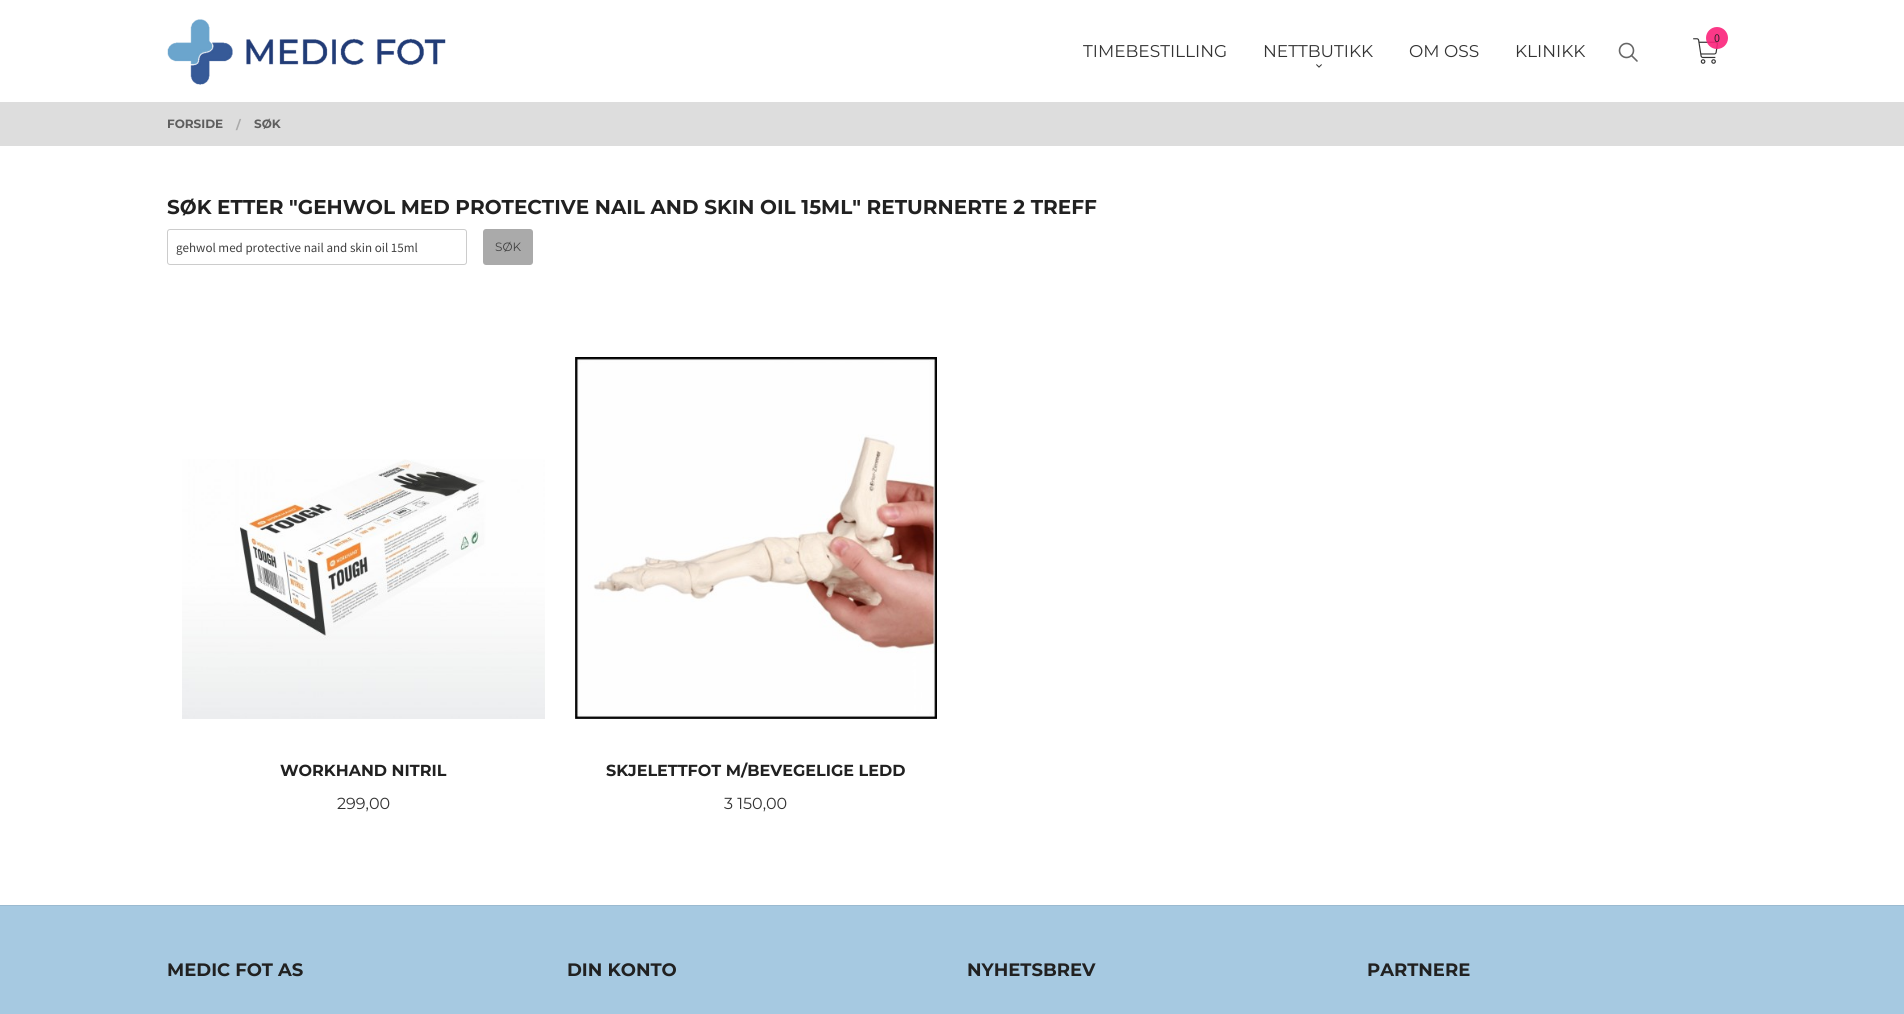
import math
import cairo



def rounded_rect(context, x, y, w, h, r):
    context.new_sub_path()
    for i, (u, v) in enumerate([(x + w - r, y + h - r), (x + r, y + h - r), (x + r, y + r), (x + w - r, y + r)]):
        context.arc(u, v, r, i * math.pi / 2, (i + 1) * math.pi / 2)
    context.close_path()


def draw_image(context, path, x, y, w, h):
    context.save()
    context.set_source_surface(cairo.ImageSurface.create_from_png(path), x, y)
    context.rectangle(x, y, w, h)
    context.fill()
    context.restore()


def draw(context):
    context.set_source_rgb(221 / 255, 221 / 255, 221 / 255)
    context.paint()
    context.set_source_rgb(1, 1, 1)
    context.rectangle(0, 0, 1904, 102)
    context.fill()
    draw_image(context, "images/1.png", 1693, 38, 25, 26)
    context.set_source_rgba(251 / 255, 35 / 255, 122 / 255, 0.9)
    context.arc(1717, 38, 11, 0, 2 * math.pi)
    context.fill()
    draw_image(context, "images/2.png", 167, 19, 279, 66)
    draw_image(context, "images/3.png", 1316, 64, 6, 4)
    context.arc(1626.5, 50.5, 7, 0, 2 * math.pi)
    context.set_source_rgb(102 / 255, 102 / 255, 102 / 255)
    context.set_line_width(1.6)
    context.stroke()
    context.new_path()
    context.move_to(1637, 61)
    context.line_to(1631.5, 55.5)
    context.set_line_cap(cairo.LineCap.ROUND)
    context.stroke()
    context.set_source_rgb(1, 1, 1)
    context.rectangle(0, 146, 1904, 759)
    context.fill()
    rounded_rect(context, 167.5, 229.5, 299, 35, 2.5)
    context.set_source_rgb(204 / 255, 204 / 255, 204 / 255)
    context.set_line_width(1)
    context.set_line_cap(cairo.LineCap.BUTT)
    context.stroke()
    context.set_source_rgb(170 / 255, 170 / 255, 170 / 255)
    rounded_rect(context, 483, 229, 50, 36, 3)
    context.fill()
    draw_image(context, "images/4.png", 182, 459, 363, 260)
    draw_image(context, "images/5.png", 575, 357, 362, 362)
    context.set_source_rgb(166 / 255, 201 / 255, 225 / 255)
    context.rectangle(0, 906, 1904, 108)
    context.fill()
    context.set_source_rgb(155 / 255, 186 / 255, 208 / 255)
    context.rectangle(0, 905, 1904, 1)
    context.fill()
    context.select_font_face("Source Sans Pro")
    context.set_font_size(12)
    context.set_source_rgb(50 / 255, 31 / 255, 39 / 255)
    context.move_to(1714, 42)
    context.show_text("0")
    context.select_font_face("Montserrat")
    context.set_font_size(17)
    context.set_source_rgb(51 / 255, 51 / 255, 51 / 255)
    context.move_to(1083, 57)
    context.show_text("TIMEBESTILLING")
    context.move_to(1263, 57)
    context.show_text("NETTBUTIKK")
    context.move_to(1409, 57)
    context.show_text("OM OSS")
    context.move_to(1515, 57)
    context.show_text("KLINIKK")
    context.select_font_face("Montserrat", cairo.FontSlant.NORMAL, cairo.FontWeight.BOLD)
    context.set_font_size(12)
    context.set_source_rgb(94 / 255, 94 / 255, 94 / 255)
    context.move_to(167, 128)
    context.show_text("FORSIDE")
    context.set_source_rgb(170 / 255, 170 / 255, 170 / 255)
    context.move_to(236, 129)
    context.show_text("/")
    context.set_source_rgb(94 / 255, 94 / 255, 94 / 255)
    context.move_to(254, 128)
    context.show_text("SØK")
    context.set_font_size(20)
    context.set_source_rgb(33 / 255, 33 / 255, 33 / 255)
    context.move_to(167, 214)
    context.show_text("SØK ETTER \"GEHWOL MED PROTECTIVE NAIL AND SKIN OIL 15ML\" RETURNERTE 2 TREFF")
    context.select_font_face("Source Sans Pro")
    context.set_font_size(13)
    context.set_source_rgb(64 / 255, 64 / 255, 64 / 255)
    context.move_to(176, 252)
    context.show_text("gehwol med protective nail and skin oil 15ml")
    context.select_font_face("Montserrat")
    context.set_font_size(12)
    context.move_to(495, 251)
    context.show_text("SØK")
    context.select_font_face("Montserrat", cairo.FontSlant.NORMAL, cairo.FontWeight.BOLD)
    context.set_font_size(16)
    context.set_source_rgb(33 / 255, 33 / 255, 33 / 255)
    context.move_to(280, 776)
    context.show_text("WORKHAND NITRIL")
    context.select_font_face("Montserrat")
    context.set_source_rgb(51 / 255, 51 / 255, 51 / 255)
    context.move_to(337, 809)
    context.show_text("299,00")
    context.select_font_face("Montserrat", cairo.FontSlant.NORMAL, cairo.FontWeight.BOLD)
    context.set_source_rgb(33 / 255, 33 / 255, 33 / 255)
    context.move_to(606, 776)
    context.show_text("SKJELETTFOT M/BEVEGELIGE LEDD")
    context.select_font_face("Montserrat")
    context.set_source_rgb(51 / 255, 51 / 255, 51 / 255)
    context.move_to(724, 809)
    context.show_text("3 150,00")
    context.select_font_face("Montserrat", cairo.FontSlant.NORMAL, cairo.FontWeight.BOLD)
    context.set_font_size(18)
    context.set_source_rgb(33 / 255, 33 / 255, 33 / 255)
    context.move_to(167, 976)
    context.show_text("MEDIC FOT AS")
    context.move_to(567, 976)
    context.show_text("DIN KONTO")
    context.move_to(967, 976)
    context.show_text("NYHETSBREV")
    context.move_to(1367, 976)
    context.show_text("PARTNERE")


surface = cairo.ImageSurface(cairo.Format.RGB24, 1904, 1014)
context = cairo.Context(surface)
options = cairo.FontOptions()
options.set_hint_metrics(cairo.HintMetrics.OFF)
options.set_hint_style(cairo.HintStyle.NONE)
context.set_font_options(options)
context.set_miter_limit(4)
draw(context)
surface.write_to_png("out.png")
